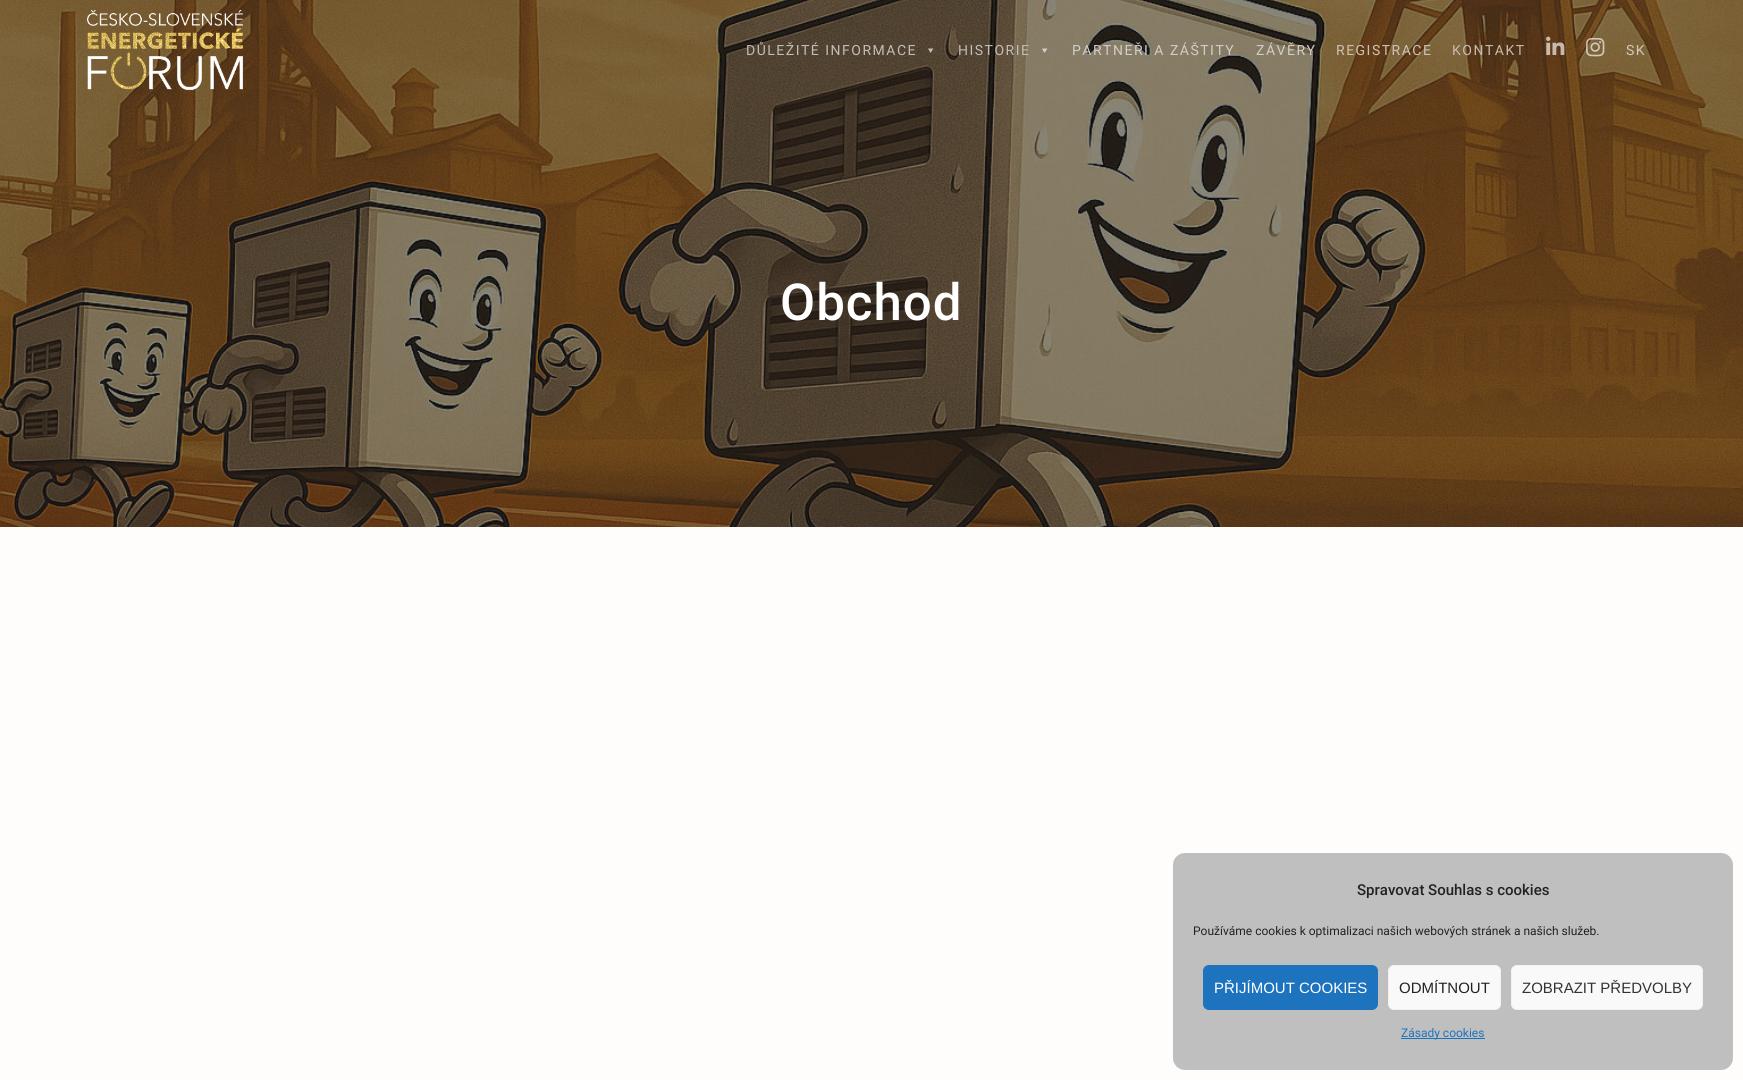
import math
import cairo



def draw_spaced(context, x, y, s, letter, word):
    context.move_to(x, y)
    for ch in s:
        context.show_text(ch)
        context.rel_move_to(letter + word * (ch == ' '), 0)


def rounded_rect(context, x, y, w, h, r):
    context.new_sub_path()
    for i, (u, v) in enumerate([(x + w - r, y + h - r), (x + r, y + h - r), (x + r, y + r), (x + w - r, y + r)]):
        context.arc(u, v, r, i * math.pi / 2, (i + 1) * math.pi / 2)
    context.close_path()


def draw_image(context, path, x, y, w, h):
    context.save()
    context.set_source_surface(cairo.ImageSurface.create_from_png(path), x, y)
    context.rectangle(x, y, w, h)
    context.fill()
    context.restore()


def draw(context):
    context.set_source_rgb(1, 1, 1)
    context.paint()
    draw_image(context, "images/4.png", 0, 0, 1743, 527)
    draw_image(context, "images/1.png", 87, 10, 156, 80)
    context.set_source_rgba(1, 1, 1, 0.65)
    context.new_path()
    context.move_to(933.5, 48.5)
    context.line_to(930.5, 53)
    context.line_to(928, 48.5)
    context.close_path()
    context.fill()
    context.new_path()
    context.move_to(1047.5, 48.5)
    context.line_to(1044.5, 53)
    context.line_to(1042, 48.5)
    context.close_path()
    context.fill()
    draw_image(context, "images/2.png", 1546, 36, 19, 19)
    draw_image(context, "images/3.png", 1586, 37, 19, 20)
    context.set_source_rgb(1, 252 / 255, 252 / 255)
    context.rectangle(0, 527, 1743, 553)
    context.fill()
    context.set_source_rgb(191 / 255, 191 / 255, 191 / 255)
    rounded_rect(context, 1173, 853, 560, 217, 12)
    context.fill()
    context.set_source_rgb(30 / 255, 115 / 255, 190 / 255)
    rounded_rect(context, 1203.5, 965.5, 174, 44, 5.5)
    context.fill_preserve()
    context.set_line_width(1)
    context.stroke()
    context.set_source_rgb(249 / 255, 249 / 255, 249 / 255)
    rounded_rect(context, 1388.5, 965.5, 112, 44, 5.5)
    context.fill_preserve()
    context.set_source_rgb(242 / 255, 242 / 255, 242 / 255)
    context.stroke()
    context.set_source_rgb(249 / 255, 249 / 255, 249 / 255)
    rounded_rect(context, 1511.5, 965.5, 191, 44, 5.5)
    context.fill_preserve()
    context.set_source_rgb(242 / 255, 242 / 255, 242 / 255)
    context.stroke()
    context.set_source_rgb(30 / 255, 115 / 255, 190 / 255)
    context.rectangle(1401, 1038, 84, 1)
    context.fill()
    context.select_font_face("Roboto")
    context.set_font_size(14)
    context.set_source_rgb(194 / 255, 189 / 255, 183 / 255)
    draw_spaced(context, 746, 55, "DŮLEŽITÉ INFORMACE", 1.5, 0)
    draw_spaced(context, 958, 55, "HISTORIE", 1.5, 0)
    context.set_source_rgb(209 / 255, 206 / 255, 199 / 255)
    draw_spaced(context, 1072, 55, "PARTNEŘI A ZÁŠTITY", 1.5, 0)
    draw_spaced(context, 1256, 55, "ZÁVĚRY", 1.5, 0)
    context.set_source_rgb(204 / 255, 194 / 255, 180 / 255)
    draw_spaced(context, 1336, 55, "REGISTRACE", 1.5, 0)
    context.set_source_rgb(198 / 255, 188 / 255, 177 / 255)
    draw_spaced(context, 1452, 55, "KONTAKT", 1.5, 0)
    context.set_source_rgb(209 / 255, 201 / 255, 186 / 255)
    draw_spaced(context, 1626, 55, "SK", 1.5, 0)
    context.select_font_face("Roboto Medium")
    context.set_font_size(51)
    context.set_source_rgb(1, 1, 1)
    draw_spaced(context, 780, 320, "Obchod", 1, 0)
    context.set_font_size(15)
    context.set_source_rgb(34 / 255, 34 / 255, 34 / 255)
    context.move_to(1357, 895)
    context.show_text("Spravovat Souhlas s cookies")
    context.select_font_face("Roboto")
    context.set_font_size(12)
    context.move_to(1193, 935)
    context.show_text("Používáme cookies k optimalizaci našich webových stránek a našich služeb.")
    context.select_font_face("Liberation Sans")
    context.set_font_size(15)
    context.set_source_rgb(1, 1, 1)
    context.move_to(1214, 993)
    context.show_text("PŘIJÍMOUT COOKIES")
    context.set_source_rgb(34 / 255, 34 / 255, 34 / 255)
    context.move_to(1399, 993)
    context.show_text("ODMÍTNOUT")
    context.set_source_rgb(51 / 255, 51 / 255, 51 / 255)
    context.move_to(1522, 993)
    context.show_text("ZOBRAZIT PŘEDVOLBY")
    context.select_font_face("Roboto")
    context.set_font_size(12)
    context.set_source_rgb(30 / 255, 115 / 255, 190 / 255)
    context.move_to(1401, 1037)
    context.show_text("Zásady cookies")


surface = cairo.ImageSurface(cairo.Format.RGB24, 1743, 1080)
context = cairo.Context(surface)
options = cairo.FontOptions()
options.set_hint_metrics(cairo.HintMetrics.OFF)
options.set_hint_style(cairo.HintStyle.NONE)
context.set_font_options(options)
context.set_miter_limit(4)
draw(context)
surface.write_to_png("out.png")
